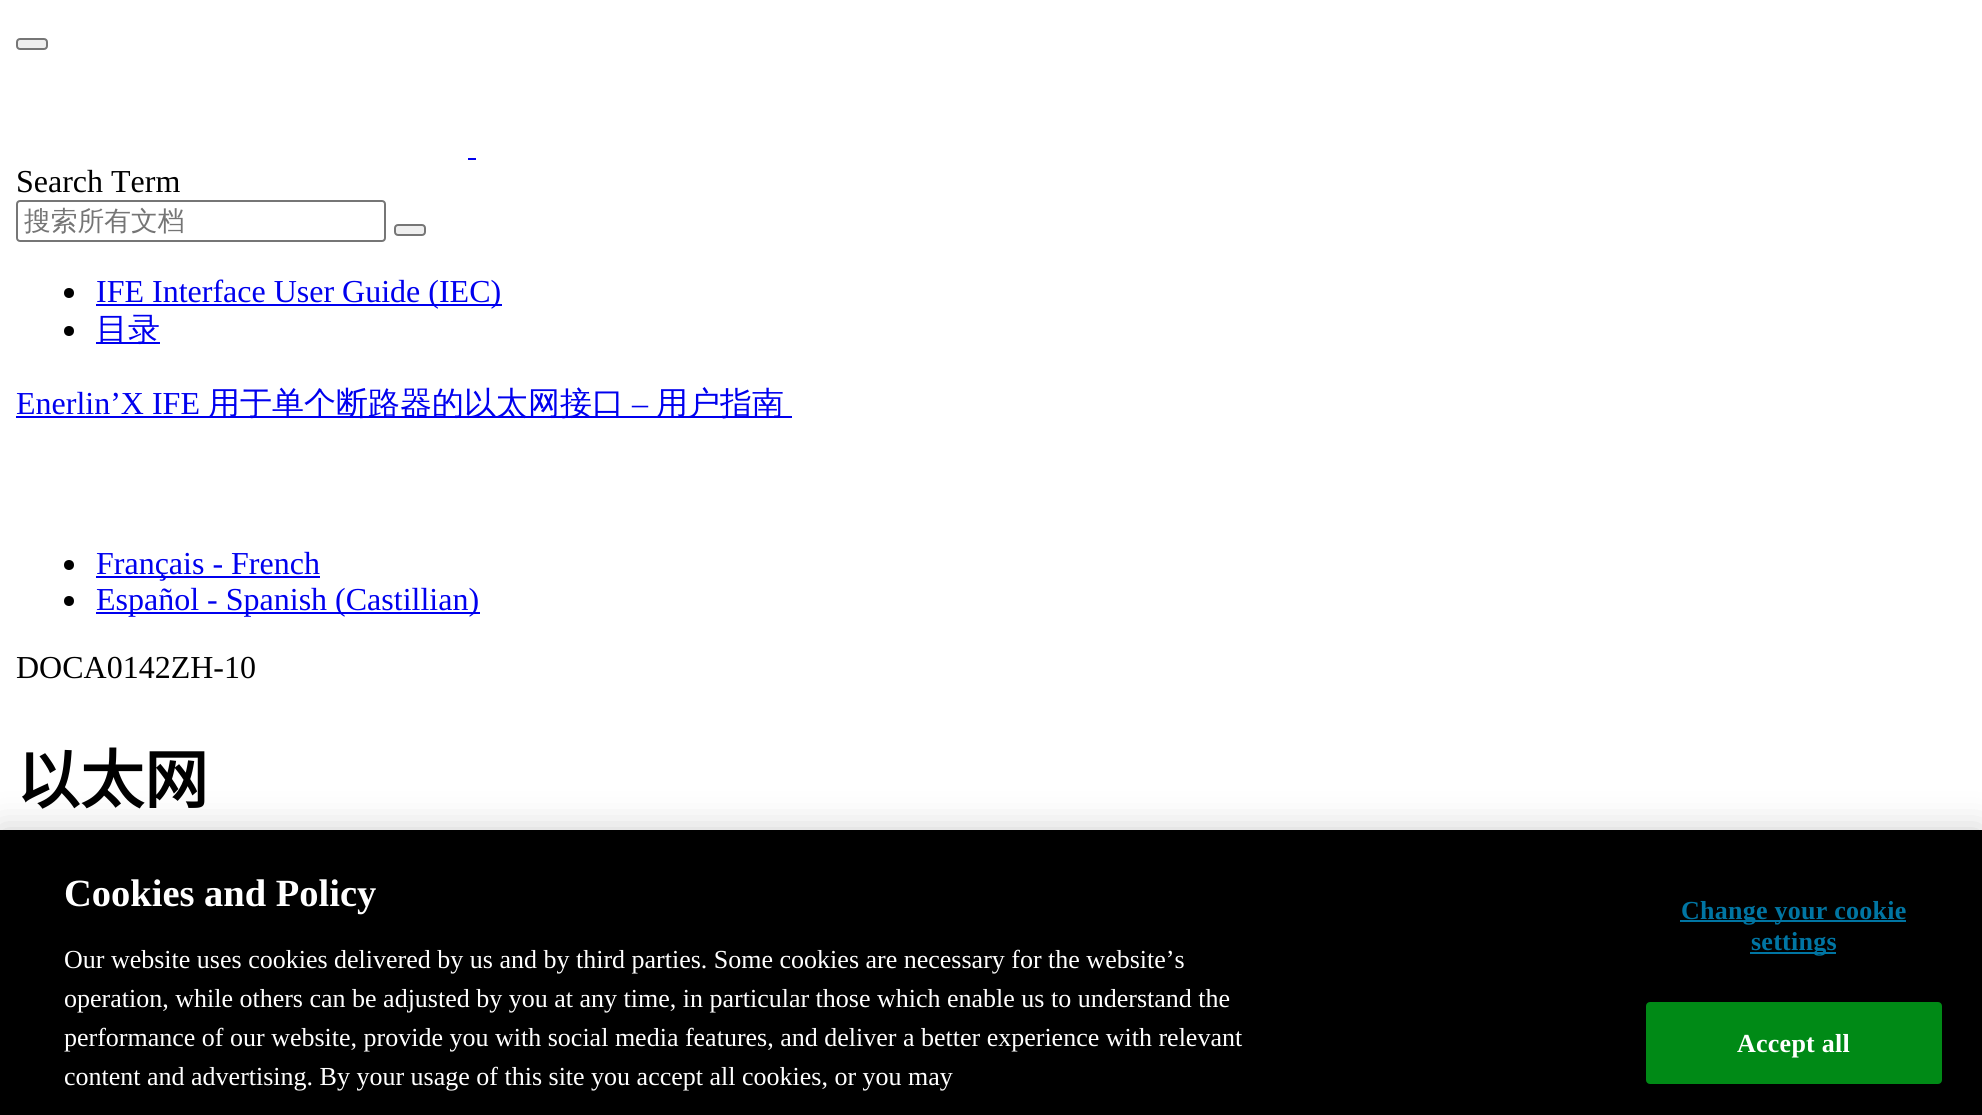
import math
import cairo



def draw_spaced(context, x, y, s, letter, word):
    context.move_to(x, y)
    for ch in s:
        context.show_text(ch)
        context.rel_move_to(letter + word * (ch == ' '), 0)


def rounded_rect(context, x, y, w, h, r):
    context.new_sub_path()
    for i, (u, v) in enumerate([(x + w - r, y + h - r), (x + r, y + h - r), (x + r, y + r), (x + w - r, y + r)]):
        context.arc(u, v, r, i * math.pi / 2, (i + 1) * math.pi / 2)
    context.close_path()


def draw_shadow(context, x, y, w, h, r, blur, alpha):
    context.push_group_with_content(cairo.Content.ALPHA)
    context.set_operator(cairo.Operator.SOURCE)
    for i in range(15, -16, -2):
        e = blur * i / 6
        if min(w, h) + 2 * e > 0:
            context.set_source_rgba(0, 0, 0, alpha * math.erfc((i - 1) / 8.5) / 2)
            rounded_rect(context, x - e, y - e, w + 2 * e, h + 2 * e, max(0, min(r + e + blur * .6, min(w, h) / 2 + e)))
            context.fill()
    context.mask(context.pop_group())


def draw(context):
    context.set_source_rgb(1, 1, 1)
    context.paint()
    context.set_source_rgb(239 / 255, 239 / 255, 239 / 255)
    rounded_rect(context, 17, 39, 30, 10, 3)
    context.fill_preserve()
    context.set_source_rgb(118 / 255, 118 / 255, 118 / 255)
    context.stroke()
    context.set_source_rgb(0, 0, 238 / 255)
    context.rectangle(468, 158, 8, 2)
    context.fill()
    rounded_rect(context, 17, 201, 368, 40, 3)
    context.set_source_rgb(118 / 255, 118 / 255, 118 / 255)
    context.stroke()
    context.set_source_rgb(239 / 255, 239 / 255, 239 / 255)
    rounded_rect(context, 395, 225, 30, 10, 3)
    context.fill_preserve()
    context.set_source_rgb(118 / 255, 118 / 255, 118 / 255)
    context.stroke()
    context.set_source_rgb(0, 0, 0)
    context.arc(69, 293, 5, 0, 2 * math.pi)
    context.fill()
    context.set_source_rgb(0, 0, 238 / 255)
    context.rectangle(96, 304, 406, 2)
    context.fill()
    context.set_source_rgb(0, 0, 0)
    context.arc(69, 331, 5, 0, 2 * math.pi)
    context.fill()
    context.set_source_rgb(0, 0, 238 / 255)
    context.rectangle(96, 342, 64, 2)
    context.fill()
    context.rectangle(16, 416, 776, 2)
    context.fill()
    context.set_source_rgb(0, 0, 0)
    context.arc(69, 565, 5, 0, 2 * math.pi)
    context.fill()
    context.set_source_rgb(0, 0, 238 / 255)
    context.rectangle(96, 576, 224, 2)
    context.fill()
    context.set_source_rgb(0, 0, 0)
    context.arc(69, 601, 5, 0, 2 * math.pi)
    context.fill()
    context.set_source_rgb(0, 0, 238 / 255)
    context.rectangle(96, 612, 384, 2)
    context.fill()
    context.set_source_rgb(0, 0, 0)
    draw_shadow(context, 0, 830, 1982, 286, 0, 18, 0.2)
    context.set_source_rgb(0, 0, 0)
    context.rectangle(0, 830, 1982, 285)
    context.fill()
    context.set_source_rgb(0, 117 / 255, 163 / 255)
    context.rectangle(1680, 920, 226, 2)
    context.fill()
    context.rectangle(1750, 952, 86, 2)
    context.fill()
    context.set_source_rgb(0, 138 / 255, 22 / 255)
    rounded_rect(context, 1647, 1003, 294, 80, 3)
    context.fill_preserve()
    context.stroke()
    context.select_font_face("Liberation Serif")
    context.set_font_size(32)
    context.set_source_rgb(0, 0, 0)
    context.move_to(16, 192)
    context.show_text("Search Term")
    context.select_font_face("WenQuanYi Zen Hei Medium")
    context.set_font_size(26.75)
    context.set_source_rgb(117 / 255, 117 / 255, 117 / 255)
    context.move_to(24, 230)
    context.show_text("搜索所有文档")
    context.select_font_face("Liberation Serif")
    context.set_font_size(32)
    context.set_source_rgb(0, 0, 238 / 255)
    context.move_to(96, 302)
    context.show_text("IFE Interface User Guide (IEC)")
    context.select_font_face("WenQuanYi Zen Hei Medium")
    context.move_to(96, 340)
    context.show_text("目录")
    context.select_font_face("Liberation Serif")
    context.move_to(16, 414)
    context.show_text("Enerlin’X IFE")
    context.select_font_face("WenQuanYi Zen Hei Medium")
    context.move_to(208, 414)
    context.show_text("用于单个断路器的以太网接口")
    context.select_font_face("Liberation Serif")
    context.move_to(632, 414)
    context.show_text("–")
    context.select_font_face("WenQuanYi Zen Hei Medium")
    context.move_to(656, 414)
    context.show_text("用户指南")
    context.select_font_face("Liberation Serif")
    context.move_to(96, 574)
    context.show_text("Français - French")
    context.move_to(96, 610)
    context.show_text("Español - Spanish (Castillian)")
    context.set_source_rgb(0, 0, 0)
    context.move_to(16, 678)
    context.show_text("DOCA0142ZH-10")
    context.select_font_face("Noto Sans CJK SC", cairo.FontSlant.NORMAL, cairo.FontWeight.BOLD)
    context.set_font_size(64)
    context.move_to(16, 803)
    context.show_text("以太网")
    context.select_font_face("Liberation Serif", cairo.FontSlant.NORMAL, cairo.FontWeight.BOLD)
    context.set_font_size(38.5)
    context.set_source_rgb(1, 1, 1)
    context.move_to(64, 906)
    context.show_text("Cookies and Policy")
    context.select_font_face("Liberation Serif")
    context.set_font_size(26)
    context.move_to(64, 968)
    context.show_text("Our website uses cookies delivered by us and by third parties. Some cookies are necessary for the website’s")
    context.move_to(64, 1007)
    context.show_text("operation, while others can be adjusted by you at any time, in particular those which enable us to understand the")
    context.move_to(64, 1046)
    context.show_text("performance of our website, provide you with social media features, and deliver a better experience with relevant")
    context.move_to(64, 1085)
    context.show_text("content and advertising. By your usage of this site you accept all cookies, or you may")
    context.select_font_face("Liberation Serif", cairo.FontSlant.NORMAL, cairo.FontWeight.BOLD)
    context.set_source_rgb(0, 117 / 255, 163 / 255)
    draw_spaced(context, 1681, 919, "Change your cookie", 0.25, 0)
    draw_spaced(context, 1751, 950, "settings", 0.25, 0)
    context.set_source_rgb(1, 1, 1)
    draw_spaced(context, 1737, 1052, "Accept all", 0.25, 0)


surface = cairo.ImageSurface(cairo.Format.RGB24, 1982, 1115)
context = cairo.Context(surface)
options = cairo.FontOptions()
options.set_hint_metrics(cairo.HintMetrics.OFF)
options.set_hint_style(cairo.HintStyle.NONE)
context.set_font_options(options)
context.set_miter_limit(4)
draw(context)
surface.write_to_png("out.png")
